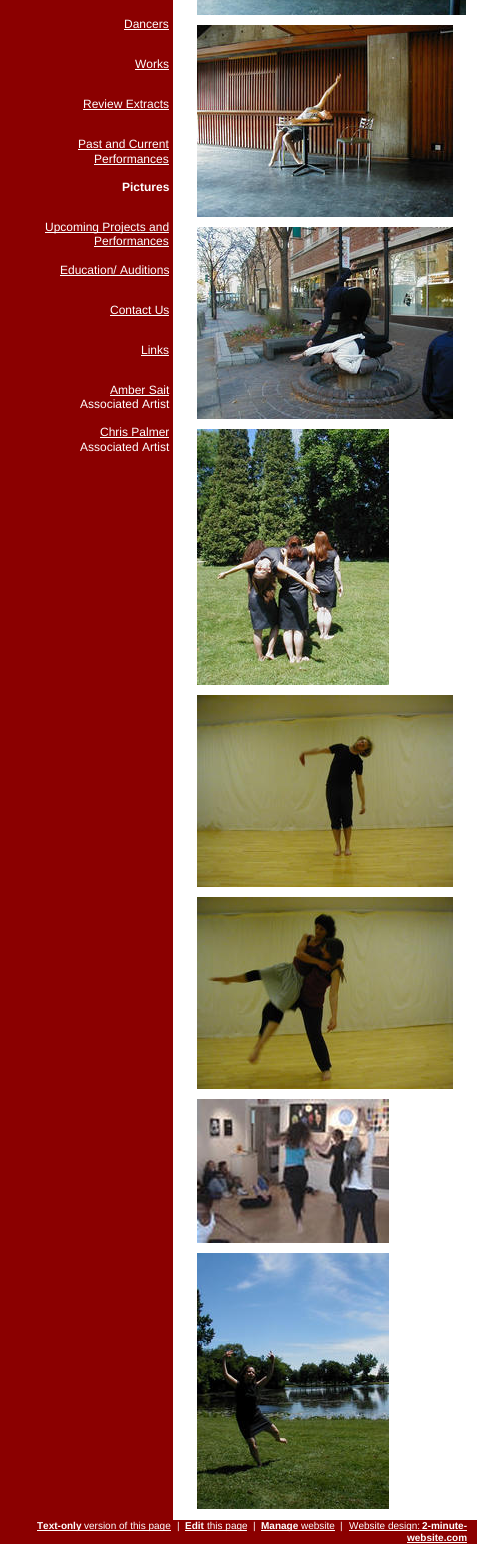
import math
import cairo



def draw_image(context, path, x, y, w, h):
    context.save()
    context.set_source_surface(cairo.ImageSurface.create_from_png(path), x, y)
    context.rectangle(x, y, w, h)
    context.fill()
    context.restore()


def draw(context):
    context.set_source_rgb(139 / 255, 0, 0)
    context.paint()
    context.set_source_rgb(1, 1, 1)
    context.rectangle(124, 29, 45, 1)
    context.fill()
    context.rectangle(135, 69, 34, 1)
    context.fill()
    context.rectangle(83, 109, 86, 1)
    context.fill()
    context.rectangle(78, 149, 91, 1)
    context.fill()
    context.rectangle(94, 164, 75, 1)
    context.fill()
    context.rectangle(45, 232, 124, 1)
    context.fill()
    context.rectangle(94, 246, 75, 1)
    context.fill()
    context.rectangle(60, 275, 109, 1)
    context.fill()
    context.rectangle(110, 315, 59, 1)
    context.fill()
    context.rectangle(141, 355, 28, 1)
    context.fill()
    context.rectangle(110, 395, 59, 1)
    context.fill()
    context.rectangle(100, 437, 69, 1)
    context.fill()
    context.rectangle(173, 0, 304, 1520)
    context.fill()
    draw_image(context, "images/1.png", 197, 0, 269, 15)
    draw_image(context, "images/2.png", 197, 25, 256, 192)
    draw_image(context, "images/3.png", 197, 227, 256, 192)
    draw_image(context, "images/4.png", 197, 429, 192, 256)
    draw_image(context, "images/5.png", 197, 695, 256, 192)
    draw_image(context, "images/6.png", 197, 897, 256, 192)
    draw_image(context, "images/7.png", 197, 1099, 192, 144)
    draw_image(context, "images/8.png", 197, 1253, 192, 256)
    context.rectangle(37, 1530, 134, 1)
    context.fill()
    context.rectangle(185, 1530, 62, 1)
    context.fill()
    context.rectangle(261, 1530, 74, 1)
    context.fill()
    context.rectangle(349, 1530, 118, 1)
    context.fill()
    context.rectangle(407, 1542, 60, 1)
    context.fill()
    context.select_font_face("Liberation Sans")
    context.set_font_size(12)
    context.move_to(124, 28)
    context.show_text("Dancers")
    context.move_to(135, 68)
    context.show_text("Works")
    context.move_to(83, 108)
    context.show_text("Review Extracts")
    context.move_to(78, 148)
    context.show_text("Past and Current")
    context.move_to(94, 163)
    context.show_text("Performances")
    context.select_font_face("Liberation Sans", cairo.FontSlant.NORMAL, cairo.FontWeight.BOLD)
    context.move_to(122, 191)
    context.show_text("Pictures")
    context.select_font_face("Liberation Sans")
    context.move_to(45, 231)
    context.show_text("Upcoming Projects and")
    context.move_to(94, 245)
    context.show_text("Performances")
    context.move_to(60, 274)
    context.show_text("Education/ Auditions")
    context.move_to(110, 314)
    context.show_text("Contact Us")
    context.move_to(141, 354)
    context.show_text("Links")
    context.move_to(110, 394)
    context.show_text("Amber Sait")
    context.move_to(80, 408)
    context.show_text("Associated Artist")
    context.move_to(100, 436)
    context.show_text("Chris Palmer")
    context.move_to(80, 451)
    context.show_text("Associated Artist")
    context.select_font_face("Liberation Sans", cairo.FontSlant.NORMAL, cairo.FontWeight.BOLD)
    context.set_font_size(10)
    context.move_to(37, 1529)
    context.show_text("Text-only")
    context.select_font_face("Liberation Sans")
    context.move_to(84, 1529)
    context.show_text("version of this page")
    context.move_to(177, 1529)
    context.show_text("|")
    context.select_font_face("Liberation Sans", cairo.FontSlant.NORMAL, cairo.FontWeight.BOLD)
    context.move_to(185, 1529)
    context.show_text("Edit")
    context.select_font_face("Liberation Sans")
    context.move_to(207, 1529)
    context.show_text("this page")
    context.move_to(253, 1529)
    context.show_text("|")
    context.select_font_face("Liberation Sans", cairo.FontSlant.NORMAL, cairo.FontWeight.BOLD)
    context.move_to(261, 1529)
    context.show_text("Manage")
    context.select_font_face("Liberation Sans")
    context.move_to(301, 1529)
    context.show_text("website")
    context.move_to(340, 1529)
    context.show_text("|")
    context.move_to(349, 1529)
    context.show_text("Website design:")
    context.select_font_face("Liberation Sans", cairo.FontSlant.NORMAL, cairo.FontWeight.BOLD)
    context.move_to(422, 1529)
    context.show_text("2-minute-")
    context.move_to(407, 1541)
    context.show_text("website.com")


surface = cairo.ImageSurface(cairo.Format.RGB24, 477, 1544)
context = cairo.Context(surface)
options = cairo.FontOptions()
options.set_hint_metrics(cairo.HintMetrics.OFF)
options.set_hint_style(cairo.HintStyle.NONE)
context.set_font_options(options)
context.set_miter_limit(4)
draw(context)
surface.write_to_png("out.png")
